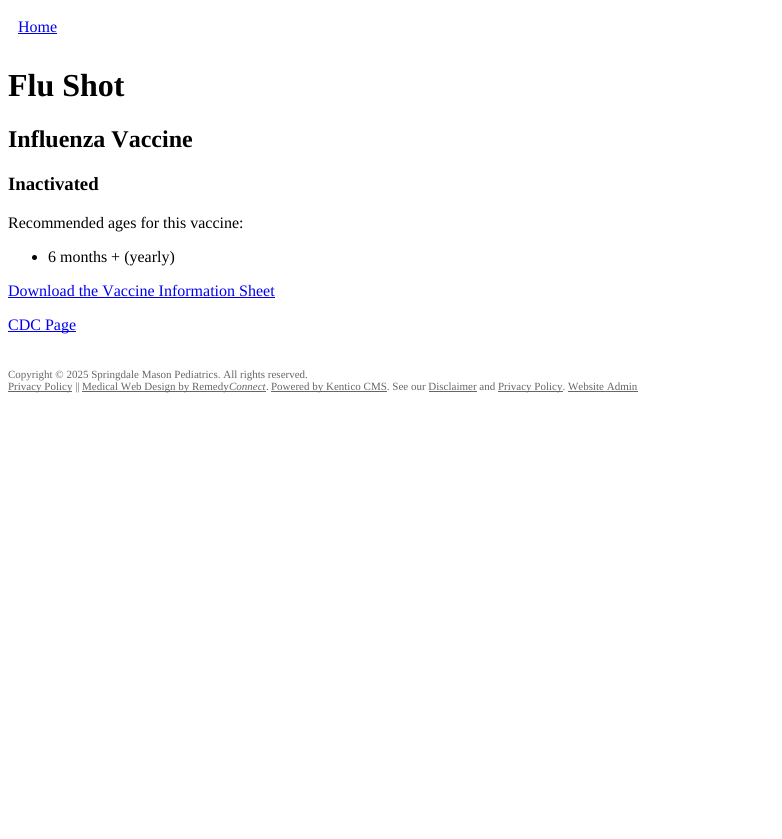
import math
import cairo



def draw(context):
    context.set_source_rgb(1, 1, 1)
    context.paint()
    context.set_source_rgb(0, 0, 238 / 255)
    context.rectangle(18, 33, 39, 1)
    context.fill()
    context.set_source_rgb(0, 0, 0)
    context.arc(34.5, 257.5, 2.5, 0, 2 * math.pi)
    context.fill()
    context.set_source_rgb(0, 0, 238 / 255)
    context.rectangle(8, 297, 267, 1)
    context.fill()
    context.rectangle(8, 331, 68, 1)
    context.fill()
    context.set_source_rgb(102 / 255, 102 / 255, 102 / 255)
    context.rectangle(8, 391, 64, 1)
    context.fill()
    context.rectangle(82, 391, 184, 1)
    context.fill()
    context.rectangle(271, 391, 116, 1)
    context.fill()
    context.rectangle(429, 391, 48, 1)
    context.fill()
    context.rectangle(498, 391, 65, 1)
    context.fill()
    context.rectangle(568, 391, 70, 1)
    context.fill()
    context.select_font_face("Liberation Serif")
    context.set_font_size(16)
    context.set_source_rgb(0, 0, 238 / 255)
    context.move_to(18, 32)
    context.show_text("Home")
    context.select_font_face("Liberation Serif", cairo.FontSlant.NORMAL, cairo.FontWeight.BOLD)
    context.set_font_size(32)
    context.set_source_rgb(0, 0, 0)
    context.move_to(8, 96)
    context.show_text("Flu Shot")
    context.set_font_size(24)
    context.move_to(8, 147)
    context.show_text("Influenza Vaccine")
    context.set_font_size(18.75)
    context.move_to(8, 190)
    context.show_text("Inactivated")
    context.select_font_face("Liberation Serif")
    context.set_font_size(16)
    context.move_to(8, 228)
    context.show_text("Recommended ages for this vaccine:")
    context.move_to(48, 262)
    context.show_text("6 months + (yearly)")
    context.set_source_rgb(0, 0, 238 / 255)
    context.move_to(8, 296)
    context.show_text("Download the Vaccine Information Sheet")
    context.move_to(8, 330)
    context.show_text("CDC Page")
    context.set_font_size(11)
    context.set_source_rgb(102 / 255, 102 / 255, 102 / 255)
    context.move_to(8, 378)
    context.show_text("Copyright © 2025 Springdale Mason Pediatrics. All rights reserved.")
    context.move_to(8, 390)
    context.show_text("Privacy Policy ||")
    context.move_to(82, 390)
    context.show_text("Medical Web Design by Remedy")
    context.select_font_face("Liberation Serif", cairo.FontSlant.ITALIC)
    context.move_to(229, 390)
    context.show_text("Connect")
    context.select_font_face("Liberation Serif")
    context.move_to(266, 390)
    context.show_text(".")
    context.move_to(271, 390)
    context.show_text("Powered by Kentico CMS. See our Disclaimer and")
    context.move_to(498, 390)
    context.show_text("Privacy Policy. Website Admin")


surface = cairo.ImageSurface(cairo.Format.RGB24, 782, 839)
context = cairo.Context(surface)
options = cairo.FontOptions()
options.set_hint_metrics(cairo.HintMetrics.OFF)
options.set_hint_style(cairo.HintStyle.NONE)
context.set_font_options(options)
context.set_miter_limit(4)
draw(context)
surface.write_to_png("out.png")
